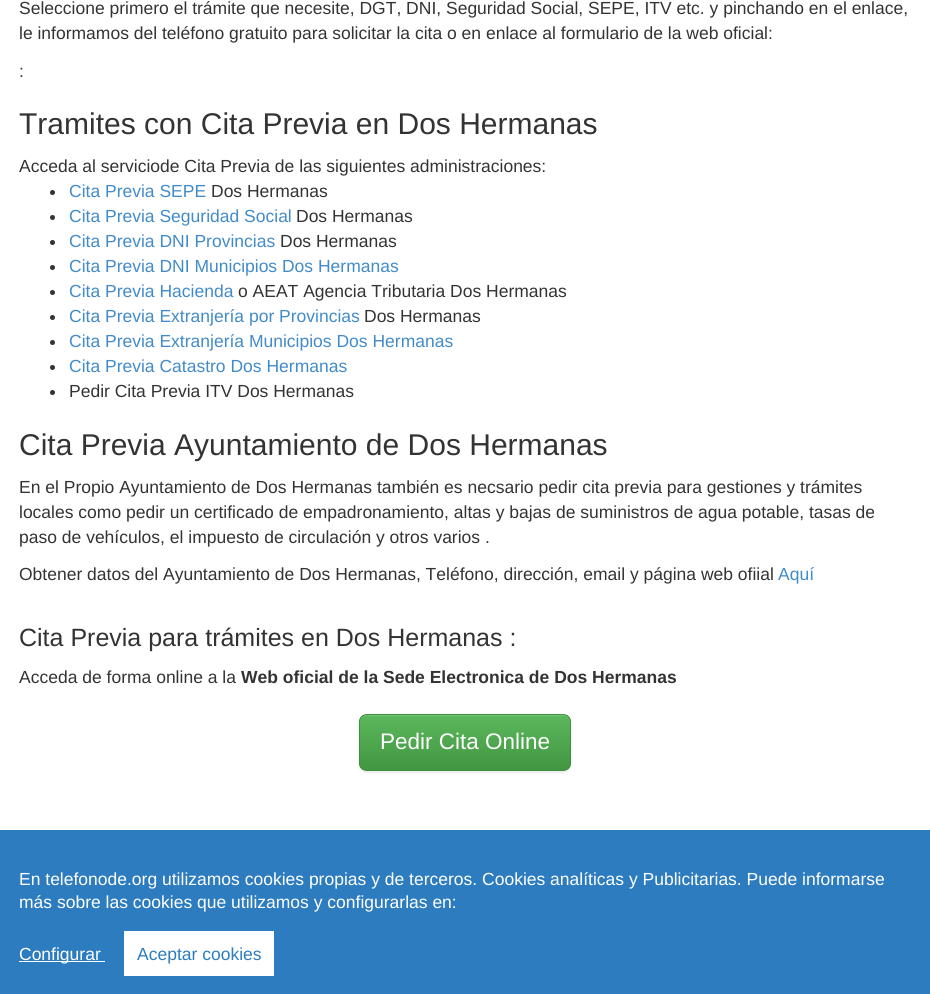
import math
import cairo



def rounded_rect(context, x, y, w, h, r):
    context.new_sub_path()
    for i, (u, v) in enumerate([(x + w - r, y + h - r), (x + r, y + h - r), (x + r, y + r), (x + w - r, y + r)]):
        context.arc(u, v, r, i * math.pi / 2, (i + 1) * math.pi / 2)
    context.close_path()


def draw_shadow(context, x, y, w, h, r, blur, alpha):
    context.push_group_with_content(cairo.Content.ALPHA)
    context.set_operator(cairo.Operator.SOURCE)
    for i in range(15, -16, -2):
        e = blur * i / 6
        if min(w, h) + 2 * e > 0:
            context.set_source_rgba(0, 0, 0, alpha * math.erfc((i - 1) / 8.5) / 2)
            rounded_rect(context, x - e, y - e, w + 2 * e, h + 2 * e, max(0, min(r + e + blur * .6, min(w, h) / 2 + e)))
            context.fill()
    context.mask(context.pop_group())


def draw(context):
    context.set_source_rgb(1, 1, 1)
    context.paint()
    context.set_source_rgb(51 / 255, 51 / 255, 51 / 255)
    context.arc(52.5, 192.5, 2.5, 0, 2 * math.pi)
    context.fill()
    context.arc(52.5, 217.5, 2.5, 0, 2 * math.pi)
    context.fill()
    context.arc(52.5, 242.5, 2.5, 0, 2 * math.pi)
    context.fill()
    context.arc(52.5, 267.5, 2.5, 0, 2 * math.pi)
    context.fill()
    context.arc(52.5, 292.5, 2.5, 0, 2 * math.pi)
    context.fill()
    context.arc(52.5, 317.5, 2.5, 0, 2 * math.pi)
    context.fill()
    context.arc(52.5, 342.5, 2.5, 0, 2 * math.pi)
    context.fill()
    context.arc(52.5, 367.5, 2.5, 0, 2 * math.pi)
    context.fill()
    context.arc(52.5, 392.5, 2.5, 0, 2 * math.pi)
    context.fill()
    context.set_source_rgb(0, 0, 0)
    draw_shadow(context, 359, 715, 212, 58, 8, 0.5, 0.07)
    context.save()
    rounded_rect(context, 359, 714, 212, 57, 8)
    context.clip()
    gradient = cairo.LinearGradient(465, 715, 465, 770)
    gradient.add_color_stop_rgba(0, 92 / 255, 184 / 255, 92 / 255, 1)
    gradient.add_color_stop_rgba(1, 65 / 255, 150 / 255, 65 / 255, 1)
    context.set_source(gradient)
    context.rectangle(359, 715, 212, 55)
    context.fill()
    context.restore()
    context.set_source_rgb(116 / 255, 195 / 255, 116 / 255)
    context.new_path()
    context.move_to(366, 716)
    context.line_to(564, 716)
    context.curve_to(567, 716, 570, 719, 570, 722)
    context.curve_to(570, 719, 569, 716, 565, 715)
    context.line_to(365, 715)
    context.curve_to(361, 716, 360, 719, 360, 722)
    context.curve_to(360, 719, 363, 716, 366, 716)
    context.close_path()
    context.fill()
    rounded_rect(context, 359.5, 714.5, 211, 56, 7.5)
    context.set_source_rgb(62 / 255, 143 / 255, 62 / 255)
    context.set_line_width(1)
    context.stroke()
    context.set_source_rgb(44 / 255, 124 / 255, 191 / 255)
    context.rectangle(0, 830, 930, 164)
    context.fill()
    context.set_source_rgb(1, 1, 1)
    context.rectangle(19, 961, 86, 1)
    context.fill()
    context.rectangle(124, 931, 150, 45)
    context.fill()
    context.select_font_face("Liberation Sans")
    context.set_font_size(17.5)
    context.set_source_rgb(51 / 255, 51 / 255, 51 / 255)
    context.move_to(19, 14)
    context.show_text("Seleccione primero el trámite que necesite, DGT, DNI, Seguridad Social, SEPE, ITV etc. y pinchando en el enlace,")
    context.move_to(19, 39)
    context.show_text("le informamos del teléfono gratuito para solicitar la cita o en enlace al formulario de la web oficial:")
    context.move_to(19, 77)
    context.show_text(":")
    context.set_font_size(30)
    context.move_to(19, 134)
    context.show_text("Tramites con Cita Previa en Dos Hermanas")
    context.set_font_size(17.5)
    context.move_to(19, 172)
    context.show_text("Acceda al serviciode Cita Previa de las siguientes administraciones:")
    context.set_source_rgb(66 / 255, 139 / 255, 202 / 255)
    context.move_to(69, 197)
    context.show_text("Cita Previa SEPE")
    context.set_source_rgb(51 / 255, 51 / 255, 51 / 255)
    context.move_to(211, 197)
    context.show_text("Dos Hermanas")
    context.set_source_rgb(66 / 255, 139 / 255, 202 / 255)
    context.move_to(69, 222)
    context.show_text("Cita Previa Seguridad Social")
    context.set_source_rgb(51 / 255, 51 / 255, 51 / 255)
    context.move_to(296, 222)
    context.show_text("Dos Hermanas")
    context.set_source_rgb(66 / 255, 139 / 255, 202 / 255)
    context.move_to(69, 247)
    context.show_text("Cita Previa DNI Provincias")
    context.set_source_rgb(51 / 255, 51 / 255, 51 / 255)
    context.move_to(280, 247)
    context.show_text("Dos Hermanas")
    context.set_source_rgb(66 / 255, 139 / 255, 202 / 255)
    context.move_to(69, 272)
    context.show_text("Cita Previa DNI Municipios Dos Hermanas")
    context.move_to(69, 297)
    context.show_text("Cita Previa Hacienda")
    context.set_source_rgb(51 / 255, 51 / 255, 51 / 255)
    context.move_to(238, 297)
    context.show_text("o AEAT Agencia Tributaria Dos Hermanas")
    context.set_source_rgb(66 / 255, 139 / 255, 202 / 255)
    context.move_to(69, 322)
    context.show_text("Cita Previa Extranjería por Provincias")
    context.set_source_rgb(51 / 255, 51 / 255, 51 / 255)
    context.move_to(364, 322)
    context.show_text("Dos Hermanas")
    context.set_source_rgb(66 / 255, 139 / 255, 202 / 255)
    context.move_to(69, 347)
    context.show_text("Cita Previa Extranjería Municipios Dos Hermanas")
    context.move_to(69, 372)
    context.show_text("Cita Previa Catastro Dos Hermanas")
    context.set_source_rgb(51 / 255, 51 / 255, 51 / 255)
    context.move_to(69, 397)
    context.show_text("Pedir Cita Previa ITV Dos Hermanas")
    context.set_font_size(30)
    context.move_to(19, 455)
    context.show_text("Cita Previa Ayuntamiento de Dos Hermanas")
    context.set_font_size(17.5)
    context.move_to(19, 493)
    context.show_text("En el Propio Ayuntamiento de Dos Hermanas también es necsario pedir cita previa para gestiones y trámites")
    context.move_to(19, 518)
    context.show_text("locales como pedir un certificado de empadronamiento, altas y bajas de suministros de agua potable, tasas de")
    context.move_to(19, 543)
    context.show_text("paso de vehículos, el impuesto de circulación y otros varios .")
    context.move_to(19, 580)
    context.show_text("Obtener datos del Ayuntamiento de Dos Hermanas, Teléfono, dirección, email y página web ofiial")
    context.set_source_rgb(66 / 255, 139 / 255, 202 / 255)
    context.move_to(778, 580)
    context.show_text("Aquí")
    context.set_font_size(25)
    context.set_source_rgb(51 / 255, 51 / 255, 51 / 255)
    context.move_to(19, 646)
    context.show_text("Cita Previa para trámites en Dos Hermanas :")
    context.set_font_size(17.5)
    context.move_to(19, 683)
    context.show_text("Acceda de forma online a la")
    context.select_font_face("Liberation Sans", cairo.FontSlant.NORMAL, cairo.FontWeight.BOLD)
    context.move_to(241, 683)
    context.show_text("Web oficial de la Sede Electronica de Dos Hermanas")
    context.select_font_face("Liberation Sans")
    context.set_font_size(22.5)
    context.set_source_rgb(1, 1, 1)
    context.move_to(380, 749)
    context.show_text("Pedir Cita Online")
    context.set_font_size(17.5)
    context.move_to(19, 885)
    context.show_text("En telefonode.org utilizamos cookies propias y de terceros. Cookies analíticas y Publicitarias. Puede informarse")
    context.move_to(19, 908)
    context.show_text("más sobre las cookies que utilizamos y configurarlas en:")
    context.move_to(19, 960)
    context.show_text("Configurar")
    context.set_source_rgb(44 / 255, 124 / 255, 191 / 255)
    context.move_to(137, 960)
    context.show_text("Aceptar cookies")


surface = cairo.ImageSurface(cairo.Format.RGB24, 930, 994)
context = cairo.Context(surface)
options = cairo.FontOptions()
options.set_hint_metrics(cairo.HintMetrics.OFF)
options.set_hint_style(cairo.HintStyle.NONE)
context.set_font_options(options)
context.set_miter_limit(4)
draw(context)
surface.write_to_png("out.png")
